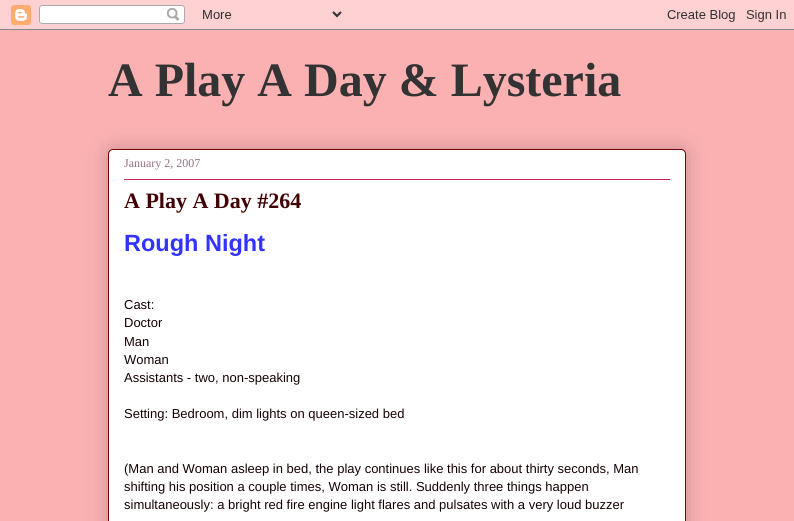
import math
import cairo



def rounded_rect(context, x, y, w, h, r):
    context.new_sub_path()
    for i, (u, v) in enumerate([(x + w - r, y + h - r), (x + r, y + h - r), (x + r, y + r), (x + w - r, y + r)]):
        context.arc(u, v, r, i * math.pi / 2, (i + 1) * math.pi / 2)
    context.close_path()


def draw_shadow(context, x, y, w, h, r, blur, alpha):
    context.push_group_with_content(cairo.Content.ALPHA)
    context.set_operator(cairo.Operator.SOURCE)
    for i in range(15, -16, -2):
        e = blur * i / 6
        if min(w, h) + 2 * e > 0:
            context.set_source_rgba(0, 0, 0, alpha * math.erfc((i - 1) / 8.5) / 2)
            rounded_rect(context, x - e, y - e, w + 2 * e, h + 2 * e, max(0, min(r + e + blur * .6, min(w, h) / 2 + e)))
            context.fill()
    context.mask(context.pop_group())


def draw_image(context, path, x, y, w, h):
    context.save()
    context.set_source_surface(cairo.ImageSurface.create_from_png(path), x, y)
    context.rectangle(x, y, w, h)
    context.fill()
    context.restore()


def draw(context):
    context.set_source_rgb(251 / 255, 177 / 255, 178 / 255)
    context.paint()
    draw_image(context, "images/1.png", 0, 0, 794, 30)
    context.set_source_rgb(0, 0, 0)
    draw_shadow(context, 108, 149, 578, 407, 5, 10, 0.2)
    context.set_source_rgb(1, 1, 1)
    rounded_rect(context, 108.5, 149.5, 577, 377, 4.5)
    context.fill_preserve()
    context.set_source_rgb(119 / 255, 0, 5 / 255)
    context.set_line_width(1)
    context.stroke()
    context.set_source_rgb(193 / 255, 38 / 255, 86 / 255)
    context.rectangle(124, 179, 546, 1)
    context.fill()
    context.select_font_face("Liberation Serif", cairo.FontSlant.NORMAL, cairo.FontWeight.BOLD)
    context.set_font_size(48)
    context.set_source_rgb(51 / 255, 51 / 255, 51 / 255)
    context.move_to(108, 96)
    context.show_text("A Play A Day & Lysteria")
    context.select_font_face("Liberation Serif")
    context.set_font_size(12)
    context.set_source_rgb(151 / 255, 113 / 255, 130 / 255)
    context.move_to(124, 167)
    context.show_text("January 2, 2007")
    context.select_font_face("Liberation Serif", cairo.FontSlant.NORMAL, cairo.FontWeight.BOLD)
    context.set_font_size(22)
    context.set_source_rgb(65 / 255, 0, 3 / 255)
    context.move_to(124, 208)
    context.show_text("A Play A Day #264")
    context.select_font_face("Liberation Sans", cairo.FontSlant.NORMAL, cairo.FontWeight.BOLD)
    context.set_font_size(23.5)
    context.set_source_rgb(51 / 255, 51 / 255, 1)
    context.move_to(124, 251)
    context.show_text("Rough Night")
    context.select_font_face("Liberation Sans")
    context.set_font_size(13)
    context.set_source_rgb(21 / 255, 1 / 255, 2 / 255)
    context.move_to(124, 309)
    context.show_text("Cast:")
    context.move_to(124, 327)
    context.show_text("Doctor")
    context.move_to(124, 346)
    context.show_text("Man")
    context.move_to(124, 364)
    context.show_text("Woman")
    context.move_to(124, 382)
    context.show_text("Assistants - two, non-speaking")
    context.move_to(124, 418)
    context.show_text("Setting: Bedroom, dim lights on queen-sized bed")
    context.move_to(124, 473)
    context.show_text("(Man and Woman asleep in bed, the play continues like this for about thirty seconds, Man")
    context.move_to(124, 491)
    context.show_text("shifting his position a couple times, Woman is still. Suddenly three things happen")
    context.move_to(124, 509)
    context.show_text("simultaneously: a bright red fire engine light flares and pulsates with a very loud buzzer")


surface = cairo.ImageSurface(cairo.Format.RGB24, 794, 521)
context = cairo.Context(surface)
options = cairo.FontOptions()
options.set_hint_metrics(cairo.HintMetrics.OFF)
options.set_hint_style(cairo.HintStyle.NONE)
context.set_font_options(options)
context.set_miter_limit(4)
draw(context)
surface.write_to_png("out.png")
